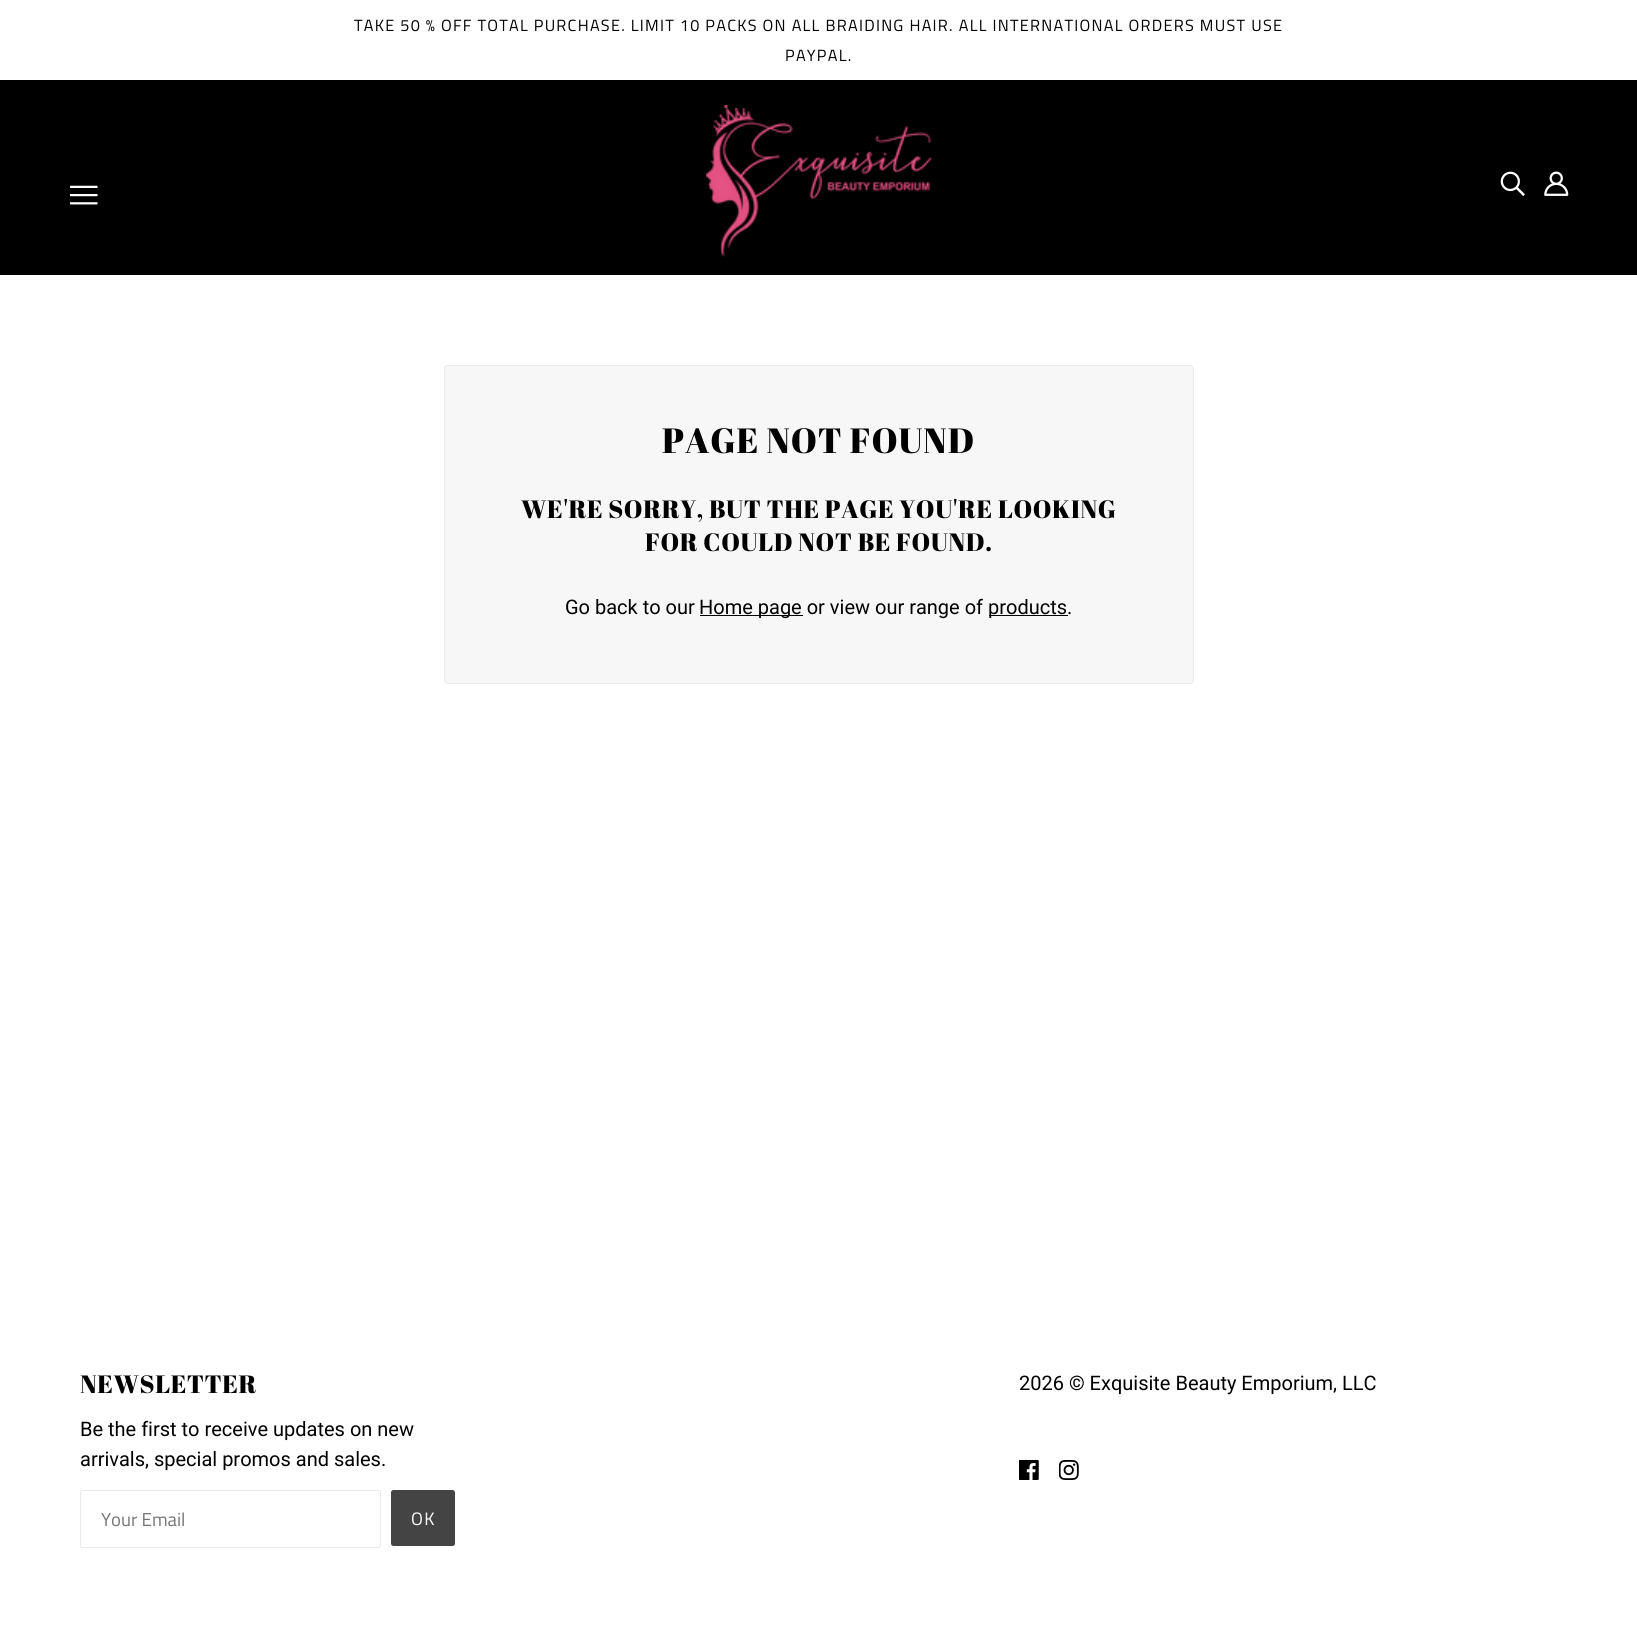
import math
import cairo



def draw_spaced(context, x, y, s, letter, word):
    context.move_to(x, y)
    for ch in s:
        context.show_text(ch)
        context.rel_move_to(letter + word * (ch == ' '), 0)


def rounded_rect(context, x, y, w, h, r):
    context.new_sub_path()
    for i, (u, v) in enumerate([(x + w - r, y + h - r), (x + r, y + h - r), (x + r, y + r), (x + w - r, y + r)]):
        context.arc(u, v, r, i * math.pi / 2, (i + 1) * math.pi / 2)
    context.close_path()


def draw_image(context, path, x, y, w, h):
    context.save()
    context.set_source_surface(cairo.ImageSurface.create_from_png(path), x, y)
    context.rectangle(x, y, w, h)
    context.fill()
    context.restore()


def draw(context):
    context.set_source_rgb(1, 1, 1)
    context.paint()
    context.set_source_rgb(0, 0, 0)
    context.rectangle(0, 80, 1637, 195)
    context.fill()
    draw_image(context, "images/1.png", 70, 185, 28, 20)
    draw_image(context, "images/2.png", 706, 105, 226, 152)
    draw_image(context, "images/3.png", 1500, 171, 25, 25)
    draw_image(context, "images/4.png", 1544, 171, 25, 25)
    context.set_source_rgb(247 / 255, 247 / 255, 247 / 255)
    rounded_rect(context, 444.5, 365.5, 749, 318, 3.5)
    context.fill_preserve()
    context.set_source_rgb(234 / 255, 234 / 255, 234 / 255)
    context.set_line_width(1)
    context.stroke()
    context.set_source_rgb(0, 0, 0)
    context.rectangle(700, 615, 103, 1)
    context.fill()
    context.rectangle(989, 615, 79, 1)
    context.fill()
    rounded_rect(context, 80.5, 1490.5, 300, 57, 2)
    context.set_source_rgb(234 / 255, 234 / 255, 234 / 255)
    context.stroke()
    context.set_source_rgb(68 / 255, 68 / 255, 68 / 255)
    rounded_rect(context, 391, 1490, 64, 56, 2.5)
    context.fill()
    draw_image(context, "images/5.png", 1019, 1460, 20, 20)
    draw_image(context, "images/6.png", 1059, 1460, 20, 20)
    context.select_font_face("Titillium Web")
    context.set_font_size(16.25)
    context.set_source_rgb(0, 0, 0)
    draw_spaced(context, 354, 31, "TAKE 50 % OFF TOTAL PURCHASE. LIMIT 10 PACKS ON ALL BRAIDING HAIR. ALL INTERNATIONAL ORDERS MUST USE", 1.25, 0)
    draw_spaced(context, 785, 61, "PAYPAL.", 1.25, 0)
    context.select_font_face("Abril Fatface")
    context.set_font_size(35)
    draw_spaced(context, 662, 453, "PAGE NOT FOUND", 0.9, 0)
    context.set_font_size(25)
    draw_spaced(context, 521, 518, "WE'RE SORRY, BUT THE PAGE YOU'RE LOOKING", 0.6, 0)
    draw_spaced(context, 645, 551, "FOR COULD NOT BE FOUND.", 0.6, 0)
    context.select_font_face("Roboto")
    context.set_font_size(20)
    context.move_to(565, 614)
    context.show_text("Go back to our")
    context.move_to(699, 614)
    context.show_text("Home page or view our range of")
    context.move_to(988, 614)
    context.show_text("products.")
    context.select_font_face("Abril Fatface")
    context.set_font_size(25)
    draw_spaced(context, 80, 1393, "NEWSLETTER", 0.6, 0)
    context.select_font_face("Roboto")
    context.set_font_size(20)
    context.move_to(80, 1436)
    context.show_text("Be the first to receive updates on new")
    context.move_to(80, 1466)
    context.show_text("arrivals, special promos and sales.")
    context.select_font_face("Titillium Web")
    context.set_font_size(18.75)
    context.set_source_rgb(117 / 255, 117 / 255, 117 / 255)
    context.move_to(101, 1526)
    context.show_text("Your Email")
    context.set_font_size(18)
    context.set_source_rgb(1, 1, 1)
    draw_spaced(context, 411, 1525, "OK", 1.25, 0)
    context.select_font_face("Roboto")
    context.set_font_size(20)
    context.set_source_rgb(0, 0, 0)
    context.move_to(1019, 1390)
    context.show_text("2026 © Exquisite Beauty Emporium, LLC")


surface = cairo.ImageSurface(cairo.Format.RGB24, 1637, 1647)
context = cairo.Context(surface)
options = cairo.FontOptions()
options.set_hint_metrics(cairo.HintMetrics.OFF)
options.set_hint_style(cairo.HintStyle.NONE)
context.set_font_options(options)
context.set_miter_limit(4)
draw(context)
surface.write_to_png("out.png")
